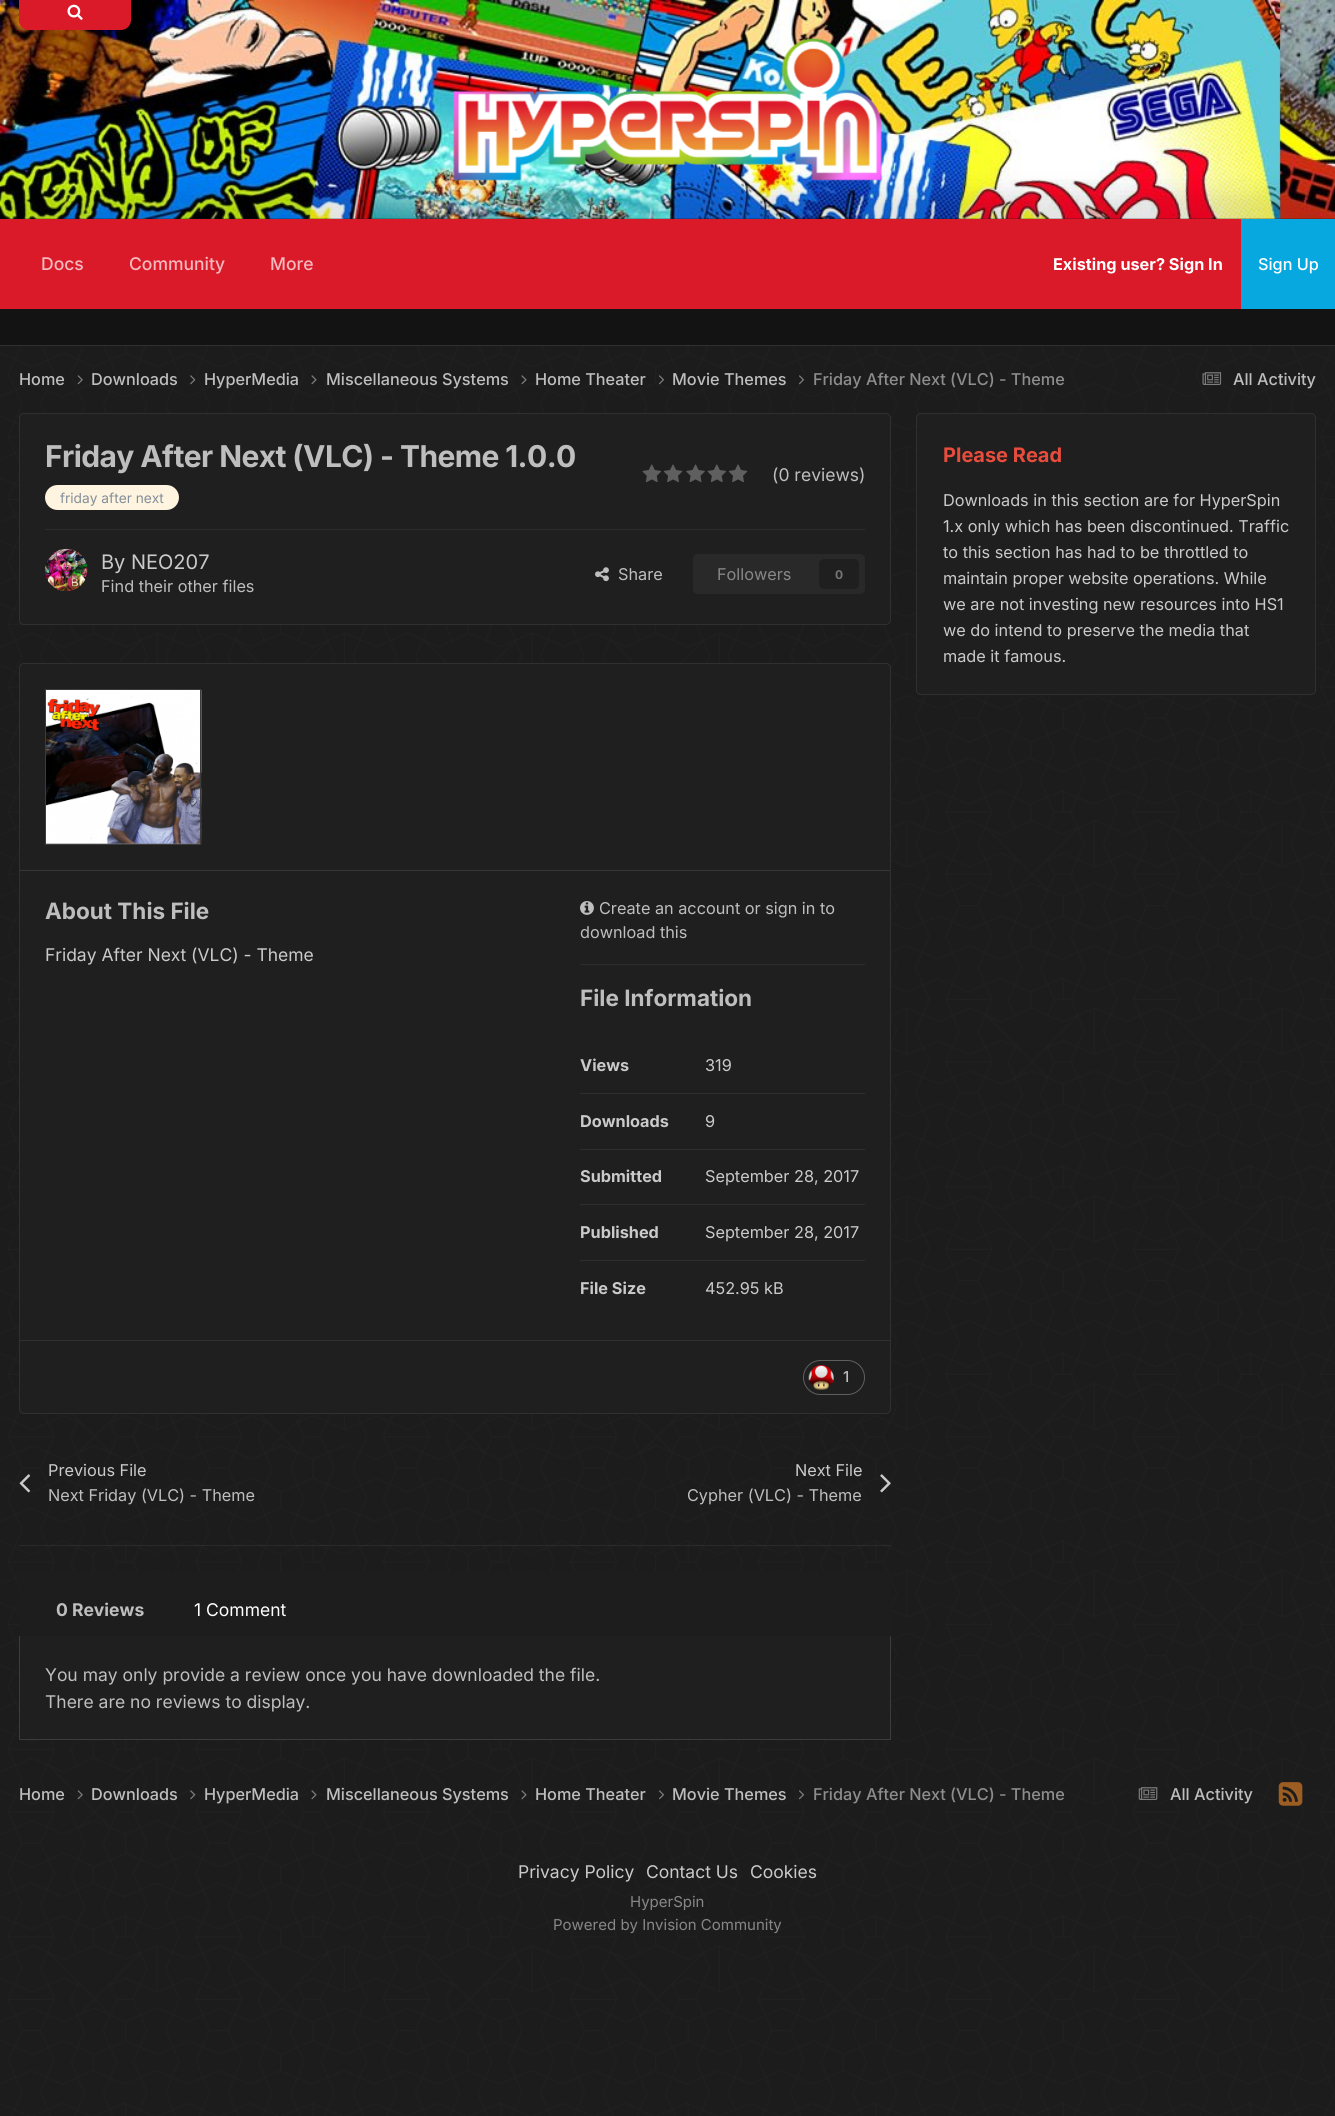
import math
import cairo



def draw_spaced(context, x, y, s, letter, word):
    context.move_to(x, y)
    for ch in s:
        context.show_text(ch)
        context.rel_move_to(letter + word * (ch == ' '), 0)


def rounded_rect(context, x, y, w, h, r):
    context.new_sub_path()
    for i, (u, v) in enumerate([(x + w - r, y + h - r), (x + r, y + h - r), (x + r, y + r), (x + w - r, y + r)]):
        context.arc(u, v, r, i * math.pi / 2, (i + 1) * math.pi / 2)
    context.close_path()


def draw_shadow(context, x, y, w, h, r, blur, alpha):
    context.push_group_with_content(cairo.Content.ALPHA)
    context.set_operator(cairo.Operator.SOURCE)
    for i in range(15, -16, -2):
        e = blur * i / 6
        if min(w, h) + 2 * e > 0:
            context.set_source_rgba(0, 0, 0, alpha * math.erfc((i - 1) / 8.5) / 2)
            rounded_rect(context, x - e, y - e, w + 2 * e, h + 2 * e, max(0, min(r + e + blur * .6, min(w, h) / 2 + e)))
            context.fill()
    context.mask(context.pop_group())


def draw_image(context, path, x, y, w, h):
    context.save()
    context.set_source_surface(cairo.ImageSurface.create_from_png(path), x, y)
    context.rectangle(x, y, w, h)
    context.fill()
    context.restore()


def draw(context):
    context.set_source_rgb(1, 1, 1)
    context.paint()
    draw_image(context, "images/1.png", 0, 218, 1335, 1898)
    draw_image(context, "images/2.png", 0, 0, 1335, 219)
    context.set_source_rgb(219 / 255, 26 / 255, 41 / 255)
    context.new_path()
    context.move_to(19, 0)
    context.line_to(131, 0)
    context.line_to(131, 20)
    context.curve_to(131, 25.5, 126.5, 30, 121, 30)
    context.line_to(29, 30)
    context.curve_to(23.5, 30, 19, 25.5, 19, 20)
    context.close_path()
    context.fill()
    draw_image(context, "images/3.png", 67, 4, 16, 16)
    draw_image(context, "images/4.png", 453, 38, 429, 143)
    context.set_source_rgb(0, 0, 0)
    draw_shadow(context, -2, 193, 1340, 132, 0, 12, 0.1)
    context.set_source_rgb(19 / 255, 19 / 255, 19 / 255)
    context.rectangle(0, 309, 1335, 36)
    context.fill()
    context.set_source_rgb(219 / 255, 26 / 255, 41 / 255)
    context.rectangle(0, 219, 1241, 90)
    context.fill()
    context.set_source_rgb(48 / 255, 48 / 255, 48 / 255)
    context.rectangle(0, 345, 1335, 1)
    context.fill()
    context.set_source_rgb(6 / 255, 168 / 255, 223 / 255)
    context.rectangle(1241, 219, 94, 90)
    context.fill()
    draw_image(context, "images/5.png", 77, 375, 6, 10)
    draw_image(context, "images/6.png", 190, 375, 6, 10)
    draw_image(context, "images/7.png", 311, 375, 6, 10)
    draw_image(context, "images/8.png", 521, 375, 6, 10)
    draw_image(context, "images/9.png", 659, 375, 6, 10)
    draw_image(context, "images/10.png", 799, 375, 6, 10)
    draw_image(context, "images/11.png", 1202, 372, 20, 13)
    context.set_source_rgb(31 / 255, 31 / 255, 31 / 255)
    rounded_rect(context, 19.5, 413.5, 871, 211, 4.5)
    context.fill_preserve()
    context.set_source_rgb(48 / 255, 48 / 255, 48 / 255)
    context.set_line_width(1)
    context.stroke()
    context.set_source_rgb(1, 244 / 255, 223 / 255)
    rounded_rect(context, 45, 485, 134, 25, 12.5)
    context.fill()
    draw_image(context, "images/12.png", 642, 464, 19, 19)
    draw_image(context, "images/13.png", 663, 464, 20, 19)
    draw_image(context, "images/14.png", 686, 464, 19, 18)
    draw_image(context, "images/12.png", 707, 464, 19, 19)
    draw_image(context, "images/13.png", 728, 464, 20, 19)
    context.set_source_rgb(45 / 255, 45 / 255, 45 / 255)
    context.rectangle(45, 529, 820, 1)
    context.fill()
    draw_image(context, "images/15.png", 45, 548, 43, 43)
    draw_image(context, "images/16.png", 595, 567, 14, 15)
    context.set_source_rgb(41 / 255, 41 / 255, 41 / 255)
    rounded_rect(context, 693, 554, 172, 40, 5)
    context.fill()
    context.set_source_rgb(31 / 255, 31 / 255, 31 / 255)
    rounded_rect(context, 819, 559, 40, 30, 5)
    context.fill()
    rounded_rect(context, 19.5, 663.5, 871, 750, 4.5)
    context.fill_preserve()
    context.set_source_rgb(48 / 255, 48 / 255, 48 / 255)
    context.stroke()
    context.set_source_rgb(55 / 255, 55 / 255, 55 / 255)
    context.rectangle(20, 870, 870, 1)
    context.fill()
    draw_image(context, "images/17.png", 46, 690, 156, 154)
    context.rectangle(45.5, 689.5, 155, 155)
    context.set_source_rgb(60 / 255, 60 / 255, 60 / 255)
    context.stroke()
    draw_image(context, "images/18.png", 580, 901, 14, 14)
    context.set_source_rgb(45 / 255, 45 / 255, 45 / 255)
    context.rectangle(580, 964, 285, 1)
    context.fill()
    context.set_source_rgb(47 / 255, 47 / 255, 47 / 255)
    context.rectangle(580, 1093, 285, 1)
    context.fill()
    context.rectangle(580, 1149, 285, 1)
    context.fill()
    context.rectangle(580, 1204, 285, 1)
    context.fill()
    context.rectangle(580, 1260, 285, 1)
    context.fill()
    context.set_source_rgb(48 / 255, 48 / 255, 48 / 255)
    context.rectangle(20, 1340, 870, 1)
    context.fill()
    rounded_rect(context, 803.5, 1360.5, 61, 34, 17)
    context.set_source_rgb(95 / 255, 95 / 255, 95 / 255)
    context.stroke()
    draw_image(context, "images/19.png", 808, 1365, 26, 25)
    draw_image(context, "images/20.png", 19, 1474, 12, 19)
    draw_image(context, "images/21.png", 880, 1474, 11, 19)
    context.set_source_rgba(202 / 255, 202 / 255, 202 / 255, 0.08)
    context.rectangle(19, 1545, 872, 1)
    context.fill()
    context.set_source_rgb(29 / 255, 29 / 255, 29 / 255)
    context.rectangle(19, 1571, 872, 65)
    context.fill()
    context.set_source_rgb(31 / 255, 31 / 255, 31 / 255)
    context.rectangle(20, 1636, 870, 103)
    context.fill()
    context.set_source_rgb(60 / 255, 60 / 255, 60 / 255)
    context.rectangle(890, 1636, 1, 104)
    context.fill()
    context.rectangle(19, 1739, 872, 1)
    context.fill()
    context.rectangle(19, 1636, 1, 104)
    context.fill()
    context.set_source_rgb(31 / 255, 31 / 255, 31 / 255)
    rounded_rect(context, 916.5, 413.5, 399, 281, 4.5)
    context.fill_preserve()
    context.set_source_rgb(48 / 255, 48 / 255, 48 / 255)
    context.stroke()
    draw_image(context, "images/22.png", 77, 1790, 6, 10)
    draw_image(context, "images/23.png", 190, 1790, 6, 10)
    draw_image(context, "images/24.png", 311, 1790, 6, 10)
    draw_image(context, "images/25.png", 521, 1790, 6, 10)
    draw_image(context, "images/26.png", 659, 1790, 6, 10)
    draw_image(context, "images/27.png", 799, 1790, 6, 10)
    draw_image(context, "images/28.png", 1138, 1787, 20, 13)
    draw_image(context, "images/29.png", 1278, 1782, 25, 24)
    context.select_font_face("Inter Medium")
    context.set_font_size(17.5)
    context.set_source_rgb(244 / 255, 186 / 255, 191 / 255)
    context.move_to(41, 270)
    context.show_text("Docs")
    context.move_to(129, 270)
    context.show_text("Community")
    context.move_to(270, 270)
    context.show_text("More")
    context.select_font_face("Inter", cairo.FontSlant.NORMAL, cairo.FontWeight.BOLD)
    context.set_font_size(16.25)
    context.set_source_rgb(1, 1, 1)
    context.move_to(1053, 270)
    context.show_text("Existing user? Sign In")
    context.select_font_face("Inter Medium")
    context.move_to(1258, 270)
    context.show_text("Sign Up")
    context.set_source_rgb(190 / 255, 190 / 255, 190 / 255)
    context.move_to(19, 385)
    context.show_text("Home")
    context.move_to(91, 385)
    context.show_text("Downloads")
    context.move_to(204, 385)
    context.show_text("HyperMedia")
    context.move_to(326, 385)
    context.show_text("Miscellaneous Systems")
    context.move_to(535, 385)
    context.show_text("Home Theater")
    context.move_to(672, 385)
    context.show_text("Movie Themes")
    context.set_source_rgb(141 / 255, 141 / 255, 141 / 255)
    context.move_to(813, 385)
    context.show_text("Friday After Next (VLC) - Theme")
    context.set_source_rgb(190 / 255, 190 / 255, 190 / 255)
    context.move_to(1233, 385)
    context.show_text("All Activity")
    context.select_font_face("Inter", cairo.FontSlant.NORMAL, cairo.FontWeight.BOLD)
    context.set_font_size(30)
    draw_spaced(context, 45, 467, "Friday After Next (VLC) - Theme 1.0.0", -0.6, 0)
    context.select_font_face("Inter")
    context.set_font_size(13.75)
    context.set_source_rgb(130 / 255, 142 / 255, 153 / 255)
    context.move_to(60, 503)
    context.show_text("friday after next")
    context.set_font_size(17.5)
    context.set_source_rgb(190 / 255, 190 / 255, 190 / 255)
    context.move_to(772, 481)
    context.show_text("(0 reviews)")
    context.set_font_size(20)
    context.set_source_rgb(202 / 255, 202 / 255, 202 / 255)
    context.move_to(101, 569)
    context.show_text("By NEO207")
    context.set_font_size(16.25)
    context.set_source_rgb(190 / 255, 190 / 255, 190 / 255)
    context.move_to(101, 592)
    context.show_text("Find their other files")
    context.move_to(618, 580)
    context.show_text("Share")
    context.set_source_rgb(135 / 255, 135 / 255, 135 / 255)
    context.move_to(717, 580)
    context.show_text("Followers")
    context.select_font_face("Inter", cairo.FontSlant.NORMAL, cairo.FontWeight.BOLD)
    context.set_font_size(12)
    context.set_source_rgb(117 / 255, 117 / 255, 117 / 255)
    context.move_to(835, 579)
    context.show_text("0")
    context.set_font_size(22.5)
    context.set_source_rgb(190 / 255, 190 / 255, 190 / 255)
    context.move_to(45, 919)
    context.show_text("About This File")
    context.select_font_face("Inter")
    context.set_font_size(17.5)
    context.set_source_rgb(202 / 255, 202 / 255, 202 / 255)
    context.move_to(45, 961)
    context.show_text("Friday After Next (VLC) - Theme")
    context.set_font_size(16.25)
    context.set_source_rgb(190 / 255, 190 / 255, 190 / 255)
    context.move_to(599, 914)
    context.show_text("Create an account or sign in to")
    context.move_to(580, 938)
    context.show_text("download this")
    context.select_font_face("Inter", cairo.FontSlant.NORMAL, cairo.FontWeight.BOLD)
    context.set_font_size(22.5)
    context.move_to(580, 1006)
    context.show_text("File Information")
    context.set_font_size(16.25)
    context.set_source_rgb(202 / 255, 202 / 255, 202 / 255)
    context.move_to(580, 1071)
    context.show_text("Views")
    context.select_font_face("Inter")
    context.move_to(705, 1071)
    context.show_text("319")
    context.select_font_face("Inter", cairo.FontSlant.NORMAL, cairo.FontWeight.BOLD)
    context.move_to(580, 1127)
    context.show_text("Downloads")
    context.select_font_face("Inter")
    context.move_to(705, 1127)
    context.show_text("9")
    context.select_font_face("Inter", cairo.FontSlant.NORMAL, cairo.FontWeight.BOLD)
    context.move_to(580, 1182)
    context.show_text("Submitted")
    context.select_font_face("Inter")
    context.move_to(705, 1182)
    context.show_text("September 28, 2017")
    context.select_font_face("Inter", cairo.FontSlant.NORMAL, cairo.FontWeight.BOLD)
    context.move_to(580, 1238)
    context.show_text("Published")
    context.select_font_face("Inter")
    context.move_to(705, 1238)
    context.show_text("September 28, 2017")
    context.select_font_face("Inter", cairo.FontSlant.NORMAL, cairo.FontWeight.BOLD)
    context.move_to(580, 1294)
    context.show_text("File Size")
    context.select_font_face("Inter")
    context.move_to(705, 1294)
    context.show_text("452.95 kB")
    context.select_font_face("Inter Medium")
    context.set_font_size(15)
    context.set_source_rgb(190 / 255, 190 / 255, 190 / 255)
    context.move_to(843, 1382)
    context.show_text("1")
    context.select_font_face("Inter")
    context.set_font_size(16.25)
    context.set_source_rgb(202 / 255, 202 / 255, 202 / 255)
    context.move_to(48, 1476)
    context.show_text("Previous File")
    context.set_source_rgb(190 / 255, 190 / 255, 190 / 255)
    context.move_to(48, 1501)
    context.show_text("Next Friday (VLC) - Theme")
    context.set_source_rgb(202 / 255, 202 / 255, 202 / 255)
    context.move_to(795, 1476)
    context.show_text("Next File")
    context.set_source_rgb(190 / 255, 190 / 255, 190 / 255)
    context.move_to(687, 1501)
    context.show_text("Cypher (VLC) - Theme")
    context.select_font_face("Inter", cairo.FontSlant.NORMAL, cairo.FontWeight.BOLD)
    context.set_font_size(17.5)
    context.move_to(56, 1616)
    context.show_text("0 Reviews")
    context.select_font_face("Inter")
    context.set_source_rgb(1, 1, 1)
    context.move_to(194, 1616)
    context.show_text("1 Comment")
    context.set_source_rgb(190 / 255, 190 / 255, 190 / 255)
    context.move_to(45, 1681)
    context.show_text("You may only provide a review once you have downloaded the file.")
    context.move_to(45, 1708)
    context.show_text("There are no reviews to display.")
    context.select_font_face("Inter", cairo.FontSlant.NORMAL, cairo.FontWeight.BOLD)
    context.set_font_size(20)
    context.set_source_rgb(231 / 255, 76 / 255, 60 / 255)
    context.move_to(943, 462)
    context.show_text("Please Read")
    context.select_font_face("Inter")
    context.set_font_size(16.25)
    context.set_source_rgb(202 / 255, 202 / 255, 202 / 255)
    context.move_to(943, 506)
    context.show_text("Downloads in this section are for HyperSpin")
    context.move_to(943, 532)
    context.show_text("1.x only which has been discontinued. Traffic")
    context.move_to(943, 558)
    context.show_text("to this section has had to be throttled to")
    context.move_to(943, 584)
    context.show_text("maintain proper website operations. While")
    context.move_to(943, 610)
    context.show_text("we are not investing new resources into HS1")
    context.move_to(943, 636)
    context.show_text("we do intend to preserve the media that")
    context.move_to(943, 662)
    context.show_text("made it famous.")
    context.select_font_face("Inter Medium")
    context.set_source_rgb(190 / 255, 190 / 255, 190 / 255)
    context.move_to(19, 1800)
    context.show_text("Home")
    context.move_to(91, 1800)
    context.show_text("Downloads")
    context.move_to(204, 1800)
    context.show_text("HyperMedia")
    context.move_to(326, 1800)
    context.show_text("Miscellaneous Systems")
    context.move_to(535, 1800)
    context.show_text("Home Theater")
    context.move_to(672, 1800)
    context.show_text("Movie Themes")
    context.set_source_rgb(141 / 255, 141 / 255, 141 / 255)
    context.move_to(813, 1800)
    context.show_text("Friday After Next (VLC) - Theme")
    context.set_source_rgb(190 / 255, 190 / 255, 190 / 255)
    context.move_to(1170, 1800)
    context.show_text("All Activity")
    context.select_font_face("Inter")
    context.set_font_size(17.5)
    context.set_source_rgb(202 / 255, 202 / 255, 202 / 255)
    context.move_to(518, 1878)
    context.show_text("Privacy Policy")
    context.move_to(646, 1878)
    context.show_text("Contact Us")
    context.move_to(750, 1878)
    context.show_text("Cookies")
    context.set_font_size(15)
    context.set_source_rgb(135 / 255, 135 / 255, 135 / 255)
    context.move_to(630, 1907)
    context.show_text("HyperSpin")
    context.move_to(553, 1930)
    context.show_text("Powered by Invision Community")


surface = cairo.ImageSurface(cairo.Format.RGB24, 1335, 2116)
context = cairo.Context(surface)
options = cairo.FontOptions()
options.set_hint_metrics(cairo.HintMetrics.OFF)
options.set_hint_style(cairo.HintStyle.NONE)
context.set_font_options(options)
context.set_miter_limit(4)
draw(context)
surface.write_to_png("out.png")
